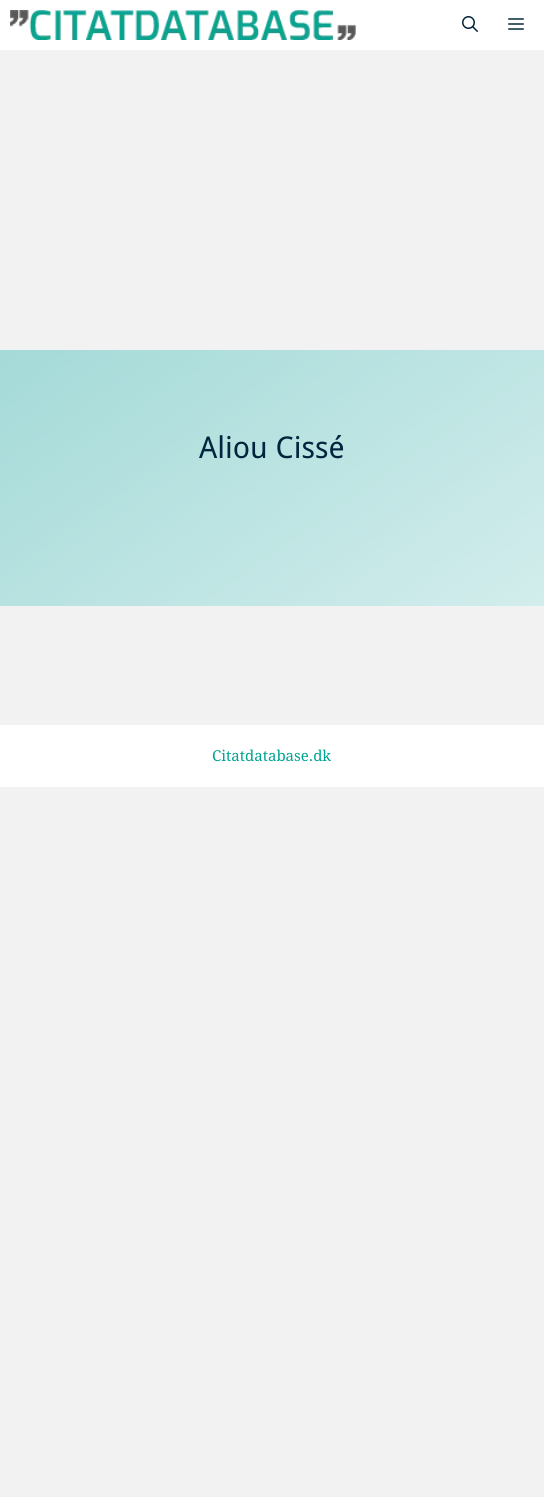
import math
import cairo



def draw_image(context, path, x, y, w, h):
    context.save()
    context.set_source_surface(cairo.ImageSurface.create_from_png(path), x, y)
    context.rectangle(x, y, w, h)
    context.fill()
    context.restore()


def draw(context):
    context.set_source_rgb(242 / 255, 242 / 255, 242 / 255)
    context.paint()
    context.set_source_rgb(1, 1, 1)
    context.rectangle(0, 0, 544, 50)
    context.fill()
    draw_image(context, "images/1.png", 10, 10, 346, 30)
    draw_image(context, "images/2.png", 462, 16, 16, 16)
    draw_image(context, "images/3.png", 508, 18, 16, 12)
    gradient = cairo.LinearGradient(122, 264, 422, 692)
    gradient.add_color_stop_rgba(0, 164 / 255, 218 / 255, 216 / 255, 1)
    gradient.add_color_stop_rgba(1, 210 / 255, 237 / 255, 236 / 255, 1)
    context.set_source(gradient)
    context.rectangle(0, 350, 544, 256)
    context.fill()
    context.set_source_rgb(1, 1, 1)
    context.rectangle(0, 725, 544, 62)
    context.fill()
    context.select_font_face("Droid Sans")
    context.set_font_size(30)
    context.set_source_rgb(0, 37 / 255, 62 / 255)
    context.move_to(199, 458)
    context.show_text("Aliou Cissé")
    context.select_font_face("Droid Serif")
    context.set_font_size(15)
    context.set_source_rgb(0, 163 / 255, 144 / 255)
    context.move_to(212, 761)
    context.show_text("Citatdatabase.dk")


surface = cairo.ImageSurface(cairo.Format.RGB24, 544, 1497)
context = cairo.Context(surface)
options = cairo.FontOptions()
options.set_hint_metrics(cairo.HintMetrics.OFF)
options.set_hint_style(cairo.HintStyle.NONE)
context.set_font_options(options)
context.set_miter_limit(4)
draw(context)
surface.write_to_png("out.png")
